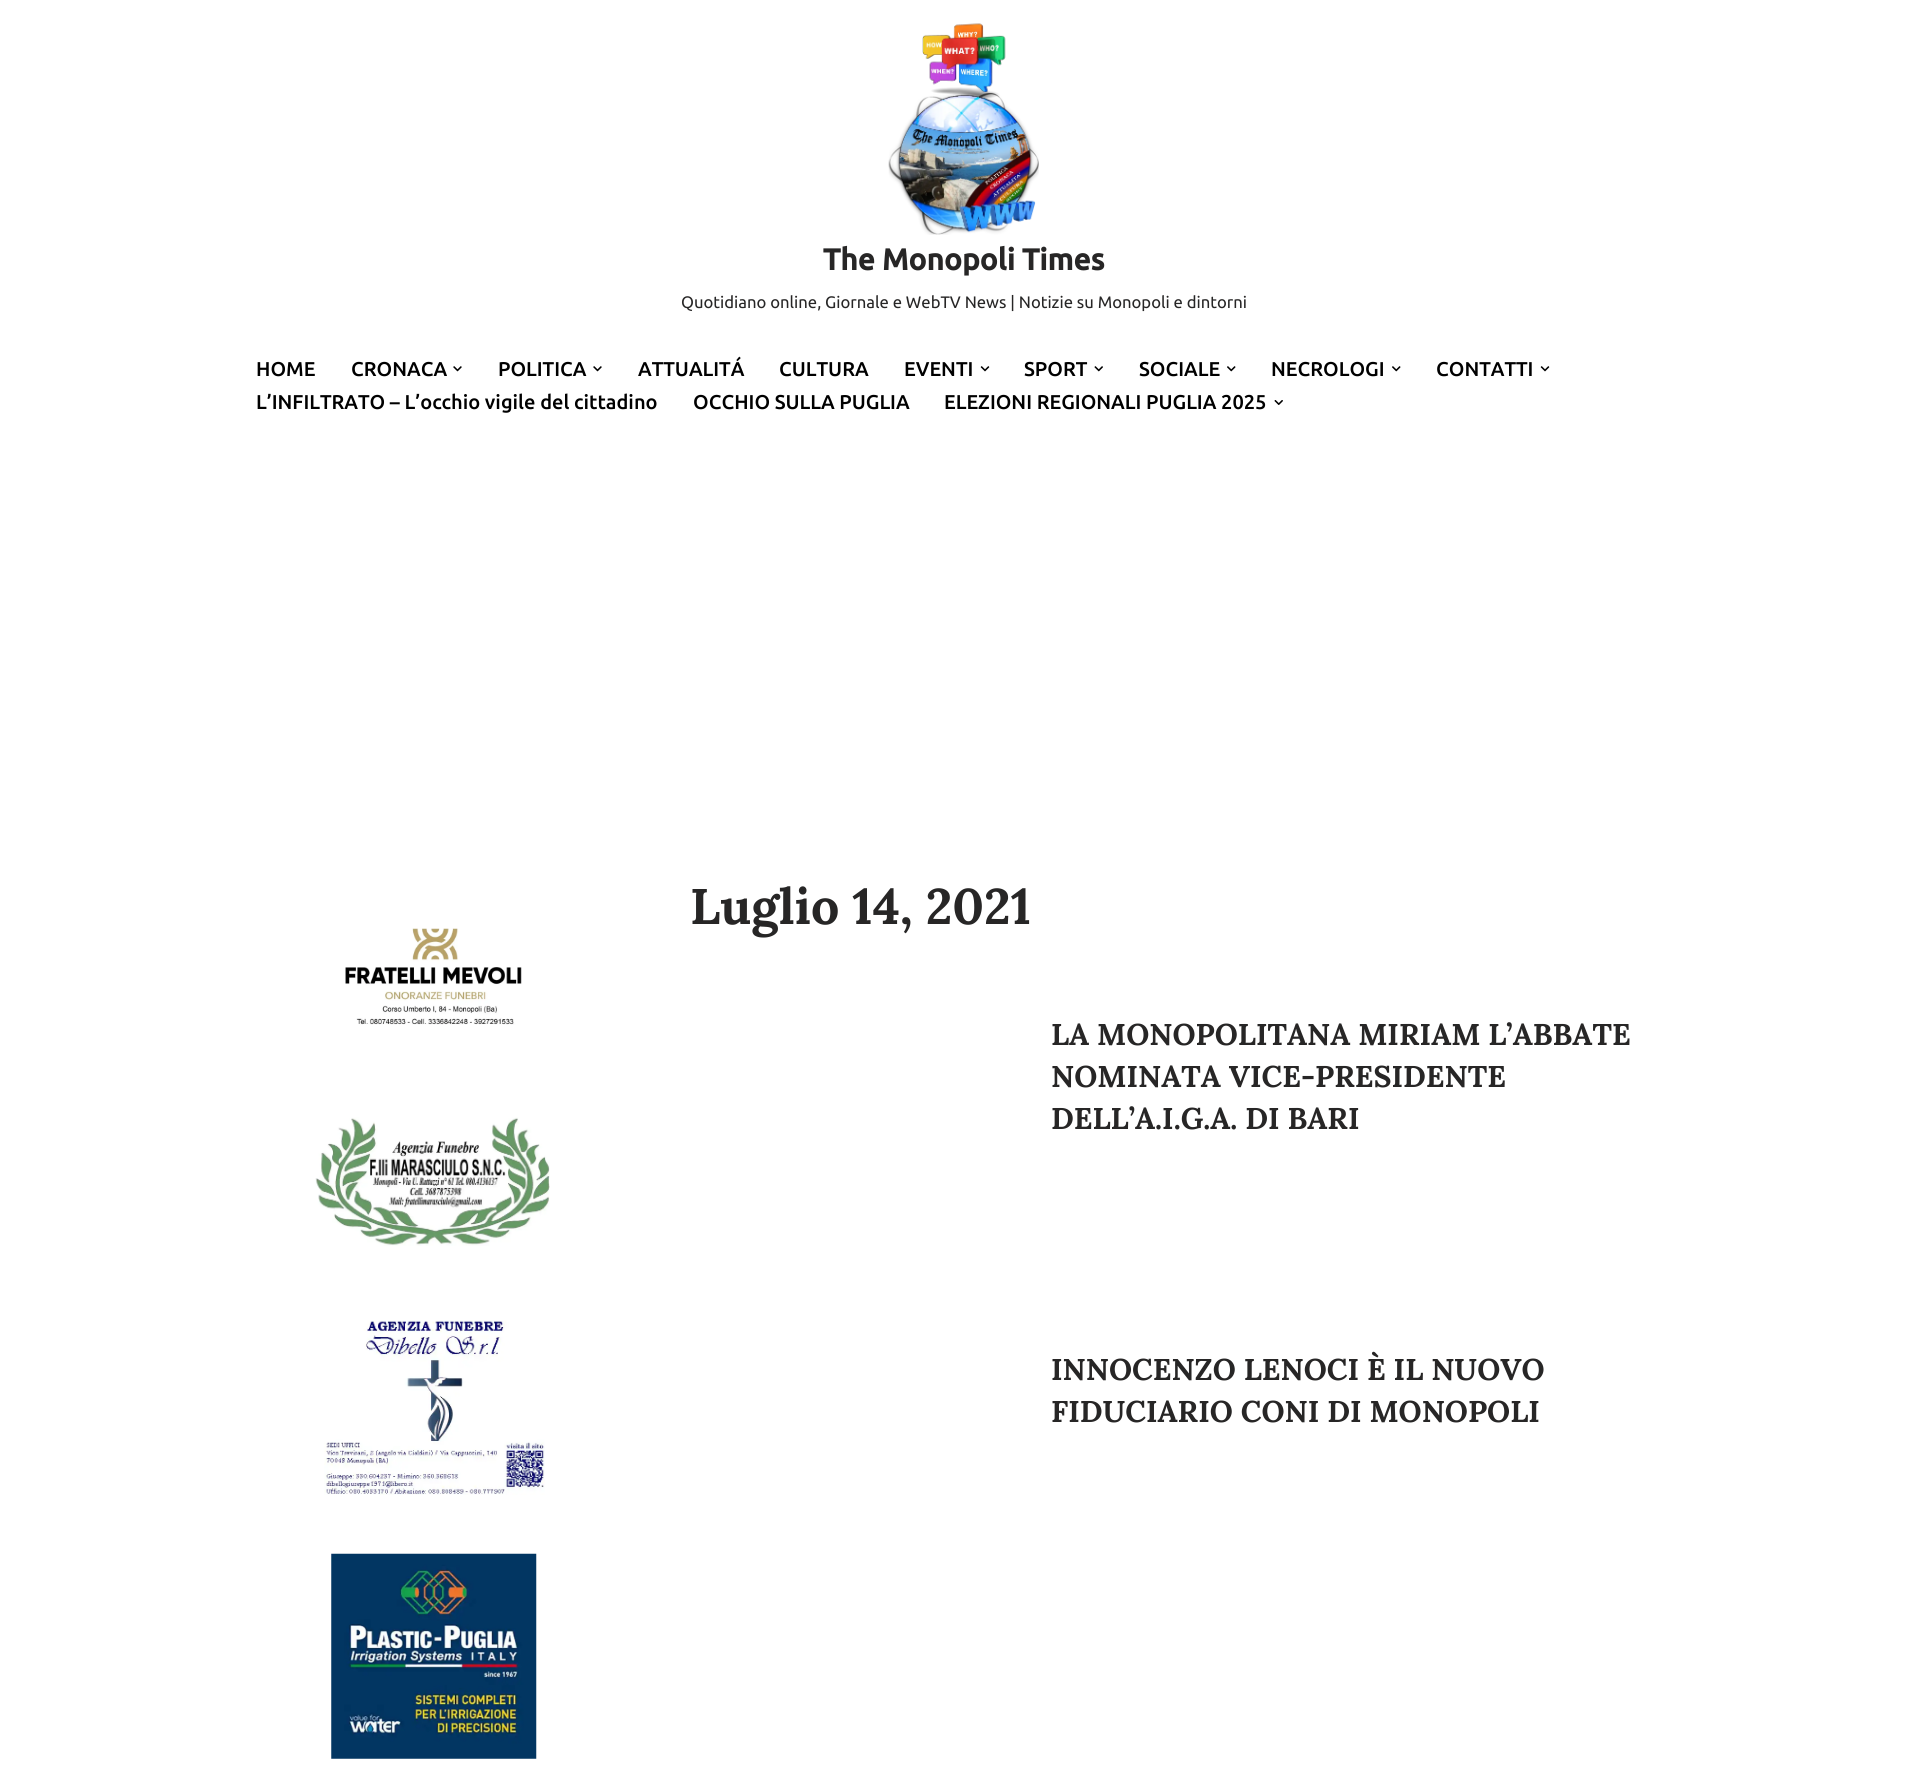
import math
import cairo



def draw_image(context, path, x, y, w, h):
    context.save()
    context.set_source_surface(cairo.ImageSurface.create_from_png(path), x, y)
    context.rectangle(x, y, w, h)
    context.fill()
    context.restore()


def draw(context):
    context.set_source_rgb(1, 1, 1)
    context.paint()
    draw_image(context, "images/1.png", 888, 23, 151, 212)
    draw_image(context, "images/2.png", 453, 366, 9, 6)
    draw_image(context, "images/2.png", 593, 366, 9, 6)
    draw_image(context, "images/3.png", 980, 366, 10, 6)
    draw_image(context, "images/4.png", 1094, 366, 9, 6)
    draw_image(context, "images/5.png", 1227, 366, 9, 6)
    draw_image(context, "images/5.png", 1392, 366, 9, 6)
    draw_image(context, "images/3.png", 1540, 366, 10, 6)
    draw_image(context, "images/6.png", 1274, 400, 9, 5)
    draw_image(context, "images/7.png", 345, 928, 177, 97)
    draw_image(context, "images/8.png", 315, 1117, 235, 129)
    draw_image(context, "images/9.png", 324, 1320, 221, 175)
    draw_image(context, "images/10.png", 331, 1553, 206, 206)
    context.select_font_face("Ubuntu", cairo.FontSlant.NORMAL, cairo.FontWeight.BOLD)
    context.set_font_size(30)
    context.set_source_rgb(39 / 255, 38 / 255, 38 / 255)
    context.move_to(823, 270)
    context.show_text("The Monopoli Times")
    context.select_font_face("Ubuntu")
    context.set_font_size(16.65)
    context.move_to(681, 308)
    context.show_text("Quotidiano online, Giornale e WebTV News | Notizie su Monopoli e dintorni")
    context.select_font_face("Ubuntu Medium")
    context.set_font_size(20)
    context.set_source_rgb(0, 0, 0)
    context.move_to(256, 376)
    context.show_text("HOME")
    context.move_to(351, 376)
    context.show_text("CRONACA")
    context.move_to(498, 376)
    context.show_text("POLITICA")
    context.move_to(638, 376)
    context.show_text("ATTUALITÁ")
    context.move_to(779, 376)
    context.show_text("CULTURA")
    context.move_to(904, 376)
    context.show_text("EVENTI")
    context.move_to(1024, 376)
    context.show_text("SPORT")
    context.move_to(1139, 376)
    context.show_text("SOCIALE")
    context.move_to(1271, 376)
    context.show_text("NECROLOGI")
    context.move_to(1436, 376)
    context.show_text("CONTATTI")
    context.move_to(256, 409)
    context.show_text("L’INFILTRATO – L’occhio vigile del cittadino")
    context.move_to(693, 409)
    context.show_text("OCCHIO SULLA PUGLIA")
    context.move_to(944, 409)
    context.show_text("ELEZIONI REGIONALI PUGLIA 2025")
    context.select_font_face("Lora", cairo.FontSlant.NORMAL, cairo.FontWeight.BOLD)
    context.set_font_size(50)
    context.set_source_rgb(39 / 255, 38 / 255, 38 / 255)
    context.move_to(690, 924)
    context.show_text("Luglio 14, 2021")
    context.set_font_size(30)
    context.move_to(1051, 1045)
    context.show_text("LA MONOPOLITANA MIRIAM L’ABBATE")
    context.move_to(1051, 1087)
    context.show_text("NOMINATA VICE-PRESIDENTE")
    context.move_to(1051, 1129)
    context.show_text("DELL’A.I.G.A. DI BARI")
    context.move_to(1051, 1380)
    context.show_text("INNOCENZO LENOCI È IL NUOVO")
    context.move_to(1051, 1422)
    context.show_text("FIDUCIARIO CONI DI MONOPOLI")


surface = cairo.ImageSurface(cairo.Format.RGB24, 1927, 1786)
context = cairo.Context(surface)
options = cairo.FontOptions()
options.set_hint_metrics(cairo.HintMetrics.OFF)
options.set_hint_style(cairo.HintStyle.NONE)
context.set_font_options(options)
context.set_miter_limit(4)
draw(context)
surface.write_to_png("out.png")
